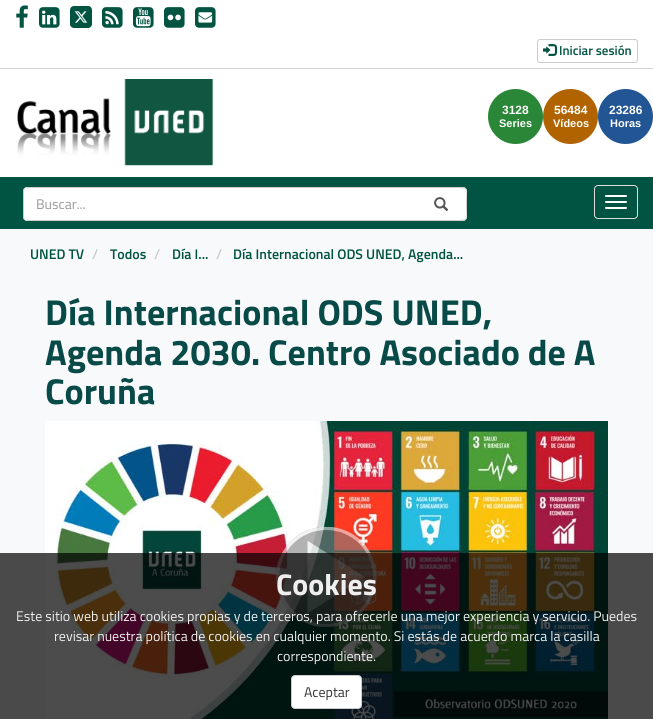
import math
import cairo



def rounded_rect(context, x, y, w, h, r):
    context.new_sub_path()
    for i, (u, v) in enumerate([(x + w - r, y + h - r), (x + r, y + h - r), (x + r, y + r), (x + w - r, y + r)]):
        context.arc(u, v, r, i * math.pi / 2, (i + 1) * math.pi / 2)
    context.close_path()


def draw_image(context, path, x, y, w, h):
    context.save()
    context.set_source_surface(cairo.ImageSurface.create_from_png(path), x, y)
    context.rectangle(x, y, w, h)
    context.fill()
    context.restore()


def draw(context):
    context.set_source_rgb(1, 1, 1)
    context.paint()
    context.set_source_rgb(211 / 255, 211 / 255, 211 / 255)
    context.rectangle(0, 68, 653, 1)
    context.fill()
    draw_image(context, "images/1.png", 16, 5, 12, 23)
    draw_image(context, "images/2.png", 39, 7, 21, 21)
    context.set_source_rgb(1 / 255, 84 / 255, 66 / 255)
    rounded_rect(context, 70, 6, 22, 22, 4)
    context.fill()
    draw_image(context, "images/3.png", 102, 7, 21, 21)
    draw_image(context, "images/4.png", 133, 7, 21, 21)
    draw_image(context, "images/5.png", 164, 7, 21, 21)
    draw_image(context, "images/6.png", 195, 7, 21, 21)
    draw_image(context, "images/7.png", 74, 11, 14, 12)
    rounded_rect(context, 537.5, 39.5, 100, 23, 2.5)
    context.set_source_rgb(204 / 255, 204 / 255, 204 / 255)
    context.set_line_width(1)
    context.stroke()
    draw_image(context, "images/8.png", 543, 44, 15, 12)
    draw_image(context, "images/9.png", 17, 79, 197, 87)
    context.set_source_rgb(42 / 255, 135 / 255, 55 / 255)
    context.arc(515.5, 116.5, 27.5, 0, 2 * math.pi)
    context.fill()
    context.set_source_rgb(177 / 255, 99 / 255, 0)
    context.arc(570.5, 116.5, 27.5, 0, 2 * math.pi)
    context.fill()
    context.set_source_rgb(34 / 255, 85 / 255, 148 / 255)
    context.arc(625.5, 116.5, 27.5, 0, 2 * math.pi)
    context.fill()
    context.set_source_rgb(1 / 255, 84 / 255, 66 / 255)
    context.rectangle(0, 177, 653, 52)
    context.fill()
    context.set_source_rgb(1, 1, 1)
    context.new_path()
    context.move_to(27, 187)
    context.line_to(416, 187)
    context.line_to(416, 221)
    context.line_to(27, 221)
    context.curve_to(25, 221, 23, 219, 23, 217)
    context.line_to(23, 191)
    context.curve_to(23, 189, 25, 187, 27, 187)
    context.close_path()
    context.fill()
    context.set_source_rgb(204 / 255, 204 / 255, 204 / 255)
    context.set_fill_rule(cairo.FillRule.EVEN_ODD)
    context.new_path()
    context.move_to(27, 187)
    context.line_to(416, 187)
    context.line_to(416, 221)
    context.line_to(27, 221)
    context.curve_to(25, 221, 23, 219, 23, 217)
    context.line_to(23, 191)
    context.curve_to(23, 189, 25, 187, 27, 187)
    context.close_path()
    context.move_to(27, 188)
    context.line_to(416, 188)
    context.line_to(416, 220)
    context.line_to(27, 220)
    context.curve_to(25, 220, 24, 219, 24, 217)
    context.line_to(24, 191)
    context.curve_to(24, 189, 25, 188, 27, 188)
    context.close_path()
    context.fill()
    context.set_source_rgb(1, 1, 1)
    context.new_path()
    context.move_to(416, 187)
    context.line_to(463, 187)
    context.curve_to(465, 187, 467, 189, 467, 191)
    context.line_to(467, 217)
    context.curve_to(467, 219, 465, 221, 463, 221)
    context.line_to(416, 221)
    context.close_path()
    context.fill()
    context.set_source_rgb(204 / 255, 204 / 255, 204 / 255)
    context.new_path()
    context.move_to(416, 187)
    context.line_to(463, 187)
    context.curve_to(465, 187, 467, 189, 467, 191)
    context.line_to(467, 217)
    context.curve_to(467, 219, 465, 221, 463, 221)
    context.line_to(416, 221)
    context.close_path()
    context.move_to(416, 188)
    context.line_to(455, 188)
    context.curve_to(470, 188, 466, 188, 466, 204)
    context.curve_to(466, 220, 470, 220, 455, 220)
    context.line_to(416, 220)
    context.close_path()
    context.fill()
    draw_image(context, "images/10.png", 434, 197, 15, 14)
    rounded_rect(context, 594.5, 185.5, 43, 33, 3.5)
    context.set_source_rgb(221 / 255, 221 / 255, 221 / 255)
    context.stroke()
    context.set_source_rgb(1, 1, 1)
    rounded_rect(context, 605, 195, 22, 2, 1)
    context.fill()
    rounded_rect(context, 605, 201, 22, 2, 1)
    context.fill()
    rounded_rect(context, 605, 207, 22, 2, 1)
    context.fill()
    context.set_source_rgb(248 / 255, 249 / 255, 250 / 255)
    context.rectangle(0, 229, 653, 490)
    context.fill()
    draw_image(context, "images/11.png", 45, 421, 563, 298)
    context.set_source_rgba(0, 0, 0, 0.7)
    context.rectangle(0, 553, 653, 166)
    context.fill()
    context.set_source_rgb(1, 1, 1)
    rounded_rect(context, 291.5, 675.5, 70, 33, 3.5)
    context.fill_preserve()
    context.set_source_rgb(204 / 255, 204 / 255, 204 / 255)
    context.stroke()
    context.select_font_face("Titillium Web SemiBold")
    context.set_font_size(13)
    context.set_source_rgb(1 / 255, 84 / 255, 66 / 255)
    context.move_to(559, 55)
    context.show_text("Iniciar sesión")
    context.select_font_face("Liberation Sans", cairo.FontSlant.NORMAL, cairo.FontWeight.BOLD)
    context.set_font_size(12)
    context.set_source_rgb(1, 1, 1)
    context.move_to(502, 114)
    context.show_text("3128")
    context.set_font_size(11)
    context.move_to(499, 127)
    context.show_text("Series")
    context.set_font_size(12)
    context.move_to(554, 114)
    context.show_text("56484")
    context.set_font_size(11)
    context.move_to(553, 127)
    context.show_text("Vídeos")
    context.set_font_size(12)
    context.move_to(609, 114)
    context.show_text("23286")
    context.set_font_size(11)
    context.move_to(610, 127)
    context.show_text("Horas")
    context.select_font_face("Titillium Web")
    context.set_font_size(14)
    context.set_source_rgb(153 / 255, 153 / 255, 153 / 255)
    context.move_to(36, 209)
    context.show_text("Buscar...")
    context.select_font_face("Titillium Web SemiBold")
    context.set_source_rgb(1 / 255, 84 / 255, 66 / 255)
    context.move_to(30, 259)
    context.show_text("UNED TV")
    context.set_source_rgb(204 / 255, 204 / 255, 204 / 255)
    context.move_to(92, 259)
    context.show_text("/")
    context.set_source_rgb(1 / 255, 84 / 255, 66 / 255)
    context.move_to(110, 259)
    context.show_text("Todos")
    context.set_source_rgb(204 / 255, 204 / 255, 204 / 255)
    context.move_to(154, 259)
    context.show_text("/")
    context.set_source_rgb(1 / 255, 84 / 255, 66 / 255)
    context.move_to(172, 259)
    context.show_text("Día I...")
    context.set_source_rgb(204 / 255, 204 / 255, 204 / 255)
    context.move_to(216, 259)
    context.show_text("/")
    context.set_source_rgb(1 / 255, 84 / 255, 66 / 255)
    context.move_to(233, 259)
    context.show_text("Día Internacional ODS UNED, Agenda...")
    context.select_font_face("Titillium Web", cairo.FontSlant.NORMAL, cairo.FontWeight.BOLD)
    context.set_font_size(36)
    context.set_source_rgb(8 / 255, 74 / 255, 72 / 255)
    context.move_to(45, 325)
    context.show_text("Día Internacional ODS UNED,")
    context.move_to(45, 365)
    context.show_text("Agenda 2030. Centro Asociado de A")
    context.move_to(45, 404)
    context.show_text("Coruña")
    context.set_font_size(30)
    context.set_source_rgb(239 / 255, 239 / 255, 239 / 255)
    context.move_to(276, 595)
    context.show_text("Cookies")
    context.select_font_face("Titillium Web")
    context.set_font_size(14)
    context.move_to(16, 621)
    context.show_text("Este sitio web utiliza cookies propias y de terceros, para ofrecerle una mejor experiencia y servicio. Puedes")
    context.move_to(54, 641)
    context.show_text("revisar nuestra política de cookies en cualquier momento. Si estás de acuerdo marca la casilla")
    context.move_to(277, 661)
    context.show_text("correspondiente.")
    context.set_source_rgb(51 / 255, 51 / 255, 51 / 255)
    context.move_to(304, 697)
    context.show_text("Aceptar")


surface = cairo.ImageSurface(cairo.Format.RGB24, 653, 719)
context = cairo.Context(surface)
options = cairo.FontOptions()
options.set_hint_metrics(cairo.HintMetrics.OFF)
options.set_hint_style(cairo.HintStyle.NONE)
context.set_font_options(options)
context.set_miter_limit(4)
draw(context)
surface.write_to_png("out.png")
